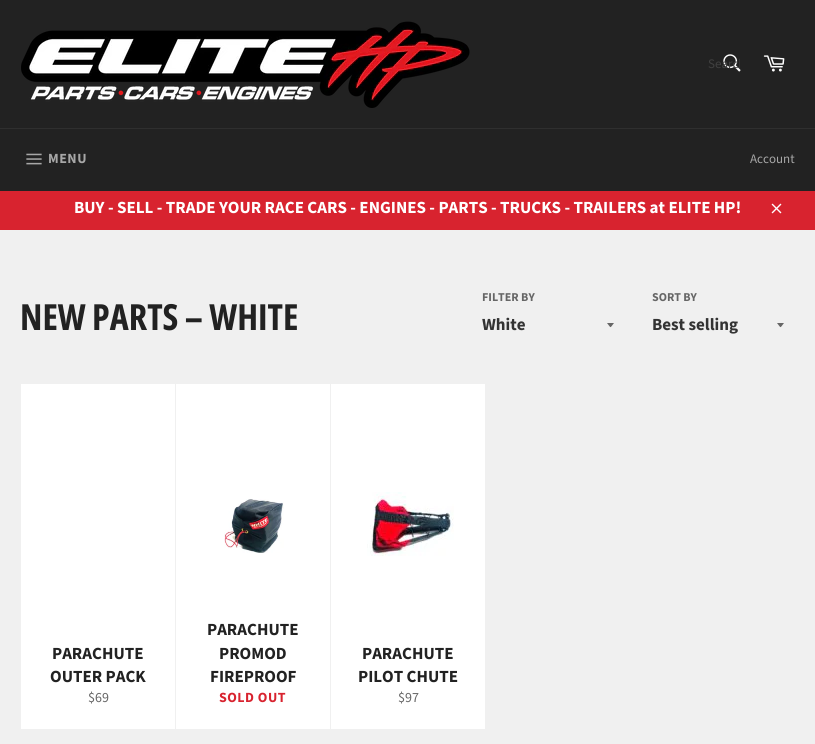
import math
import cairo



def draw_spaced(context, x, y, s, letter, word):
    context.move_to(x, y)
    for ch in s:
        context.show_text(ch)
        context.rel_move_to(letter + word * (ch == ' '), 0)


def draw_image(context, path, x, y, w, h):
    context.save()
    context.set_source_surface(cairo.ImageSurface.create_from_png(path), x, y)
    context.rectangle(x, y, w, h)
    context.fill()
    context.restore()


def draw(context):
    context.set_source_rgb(240 / 255, 240 / 255, 240 / 255)
    context.paint()
    context.set_source_rgb(34 / 255, 34 / 255, 34 / 255)
    context.rectangle(0, 0, 815, 128)
    context.fill()
    draw_image(context, "images/1.png", 21, 21, 449, 87)
    draw_image(context, "images/2.png", 723, 54, 18, 18)
    draw_image(context, "images/3.png", 763, 55, 22, 17)
    context.rectangle(0, 129, 815, 62)
    context.fill()
    context.set_source_rgb(47 / 255, 47 / 255, 47 / 255)
    context.rectangle(0, 128, 815, 1)
    context.fill()
    draw_image(context, "images/4.png", 26, 153, 16, 12)
    context.set_source_rgb(216 / 255, 35 / 255, 47 / 255)
    context.rectangle(0, 191, 815, 39)
    context.fill()
    draw_image(context, "images/5.png", 771, 203, 11, 11)
    context.set_source_rgb(102 / 255, 102 / 255, 102 / 255)
    context.new_path()
    context.move_to(607, 323)
    context.curve_to(611.5, 328.5, 609.5, 328.5, 614, 323)
    context.close_path()
    context.fill()
    context.new_path()
    context.move_to(777, 323)
    context.curve_to(781.5, 328.5, 779.5, 328.5, 784, 323)
    context.close_path()
    context.fill()
    context.set_source_rgb(1, 1, 1)
    context.rectangle(21, 384, 154, 345)
    context.fill()
    context.rectangle(176, 384, 154, 345)
    context.fill()
    draw_image(context, "images/6.png", 224, 499, 60, 54)
    context.rectangle(331, 384, 154, 345)
    context.fill()
    draw_image(context, "images/7.png", 367, 492, 87, 64)
    context.save()
    context.rectangle(708, 55, 32, 18)
    context.clip()
    context.select_font_face("Source Sans Pro")
    context.set_font_size(13)
    context.set_source_rgb(64 / 255, 64 / 255, 64 / 255)
    context.move_to(708, 68)
    context.show_text("Search")
    context.restore()
    context.select_font_face("Source Sans Pro", cairo.FontSlant.NORMAL, cairo.FontWeight.BOLD)
    context.set_font_size(14)
    context.set_source_rgb(167 / 255, 167 / 255, 167 / 255)
    draw_spaced(context, 48, 163, "MENU", 0.5, 0)
    context.select_font_face("Source Sans Pro")
    context.set_font_size(13)
    context.move_to(750, 163)
    context.show_text("Account")
    context.select_font_face("Source Sans Pro", cairo.FontSlant.NORMAL, cairo.FontWeight.BOLD)
    context.set_font_size(17)
    context.set_source_rgb(1, 1, 1)
    context.move_to(74, 213)
    context.show_text("BUY - SELL - TRADE YOUR RACE CARS - ENGINES - PARTS - TRUCKS - TRAILERS at ELITE HP!")
    context.select_font_face("Open Sans Condensed", cairo.FontSlant.NORMAL, cairo.FontWeight.BOLD)
    context.set_font_size(36)
    context.set_source_rgb(34 / 255, 34 / 255, 34 / 255)
    context.move_to(20, 330)
    context.show_text("NEW PARTS – WHITE")
    context.select_font_face("Source Sans Pro", cairo.FontSlant.NORMAL, cairo.FontWeight.BOLD)
    context.set_font_size(12)
    context.set_source_rgb(102 / 255, 102 / 255, 102 / 255)
    context.move_to(482, 301)
    context.show_text("FILTER BY")
    context.set_font_size(17)
    context.set_source_rgb(51 / 255, 51 / 255, 51 / 255)
    context.move_to(482, 330)
    context.show_text("White")
    context.set_font_size(12)
    context.set_source_rgb(102 / 255, 102 / 255, 102 / 255)
    context.move_to(652, 301)
    context.show_text("SORT BY")
    context.set_font_size(17)
    context.set_source_rgb(51 / 255, 51 / 255, 51 / 255)
    context.move_to(652, 330)
    context.show_text("Best selling")
    context.set_source_rgb(34 / 255, 34 / 255, 34 / 255)
    context.move_to(52, 659)
    context.show_text("PARACHUTE")
    context.move_to(50, 682)
    context.show_text("OUTER PACK")
    context.select_font_face("Source Sans Pro")
    context.set_font_size(14)
    context.set_source_rgb(102 / 255, 102 / 255, 102 / 255)
    context.move_to(88, 702)
    context.show_text("$69")
    context.select_font_face("Source Sans Pro", cairo.FontSlant.NORMAL, cairo.FontWeight.BOLD)
    context.set_font_size(17)
    context.set_source_rgb(34 / 255, 34 / 255, 34 / 255)
    context.move_to(207, 635)
    context.show_text("PARACHUTE")
    context.move_to(219, 659)
    context.show_text("PROMOD")
    context.move_to(210, 682)
    context.show_text("FIREPROOF")
    context.set_font_size(14)
    context.set_source_rgb(216 / 255, 35 / 255, 47 / 255)
    draw_spaced(context, 219, 702, "SOLD OUT", 0.5, 0)
    context.set_font_size(17)
    context.set_source_rgb(34 / 255, 34 / 255, 34 / 255)
    context.move_to(362, 659)
    context.show_text("PARACHUTE")
    context.move_to(358, 682)
    context.show_text("PILOT CHUTE")
    context.select_font_face("Source Sans Pro")
    context.set_font_size(14)
    context.set_source_rgb(102 / 255, 102 / 255, 102 / 255)
    context.move_to(398, 702)
    context.show_text("$97")


surface = cairo.ImageSurface(cairo.Format.RGB24, 815, 744)
context = cairo.Context(surface)
options = cairo.FontOptions()
options.set_hint_metrics(cairo.HintMetrics.OFF)
options.set_hint_style(cairo.HintStyle.NONE)
context.set_font_options(options)
context.set_miter_limit(4)
draw(context)
surface.write_to_png("out.png")
